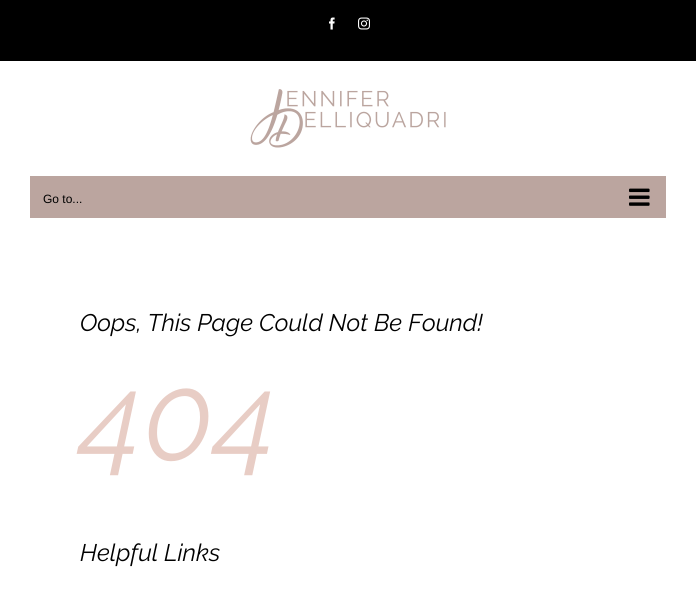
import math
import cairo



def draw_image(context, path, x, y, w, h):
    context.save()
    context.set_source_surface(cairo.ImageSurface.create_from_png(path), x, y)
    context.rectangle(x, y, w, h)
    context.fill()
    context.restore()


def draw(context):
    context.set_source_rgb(1, 1, 1)
    context.paint()
    context.set_source_rgb(0, 0, 0)
    context.rectangle(0, 0, 696, 61)
    context.fill()
    draw_image(context, "images/1.png", 329, 17, 6, 13)
    draw_image(context, "images/2.png", 358, 17, 12, 13)
    draw_image(context, "images/3.png", 250, 89, 196, 59)
    context.set_source_rgb(187 / 255, 165 / 255, 159 / 255)
    context.rectangle(30, 176, 636, 42)
    context.fill()
    draw_image(context, "images/4.png", 629, 188, 21, 18)
    context.select_font_face("Liberation Sans")
    context.set_font_size(12)
    context.set_source_rgb(0, 0, 0)
    context.move_to(43, 203)
    context.show_text("Go to...")
    context.select_font_face("Raleway Thin", cairo.FontSlant.ITALIC)
    context.set_font_size(24)
    context.move_to(80, 331)
    context.show_text("Oops, This Page Could Not Be Found!")
    context.set_font_size(120)
    context.set_source_rgb(232 / 255, 205 / 255, 197 / 255)
    context.move_to(80, 460)
    context.show_text("404")
    context.set_font_size(24)
    context.set_source_rgb(0, 0, 0)
    context.move_to(80, 561)
    context.show_text("Helpful Links")


surface = cairo.ImageSurface(cairo.Format.RGB24, 696, 595)
context = cairo.Context(surface)
options = cairo.FontOptions()
options.set_hint_metrics(cairo.HintMetrics.OFF)
options.set_hint_style(cairo.HintStyle.NONE)
context.set_font_options(options)
context.set_miter_limit(4)
draw(context)
surface.write_to_png("out.png")
